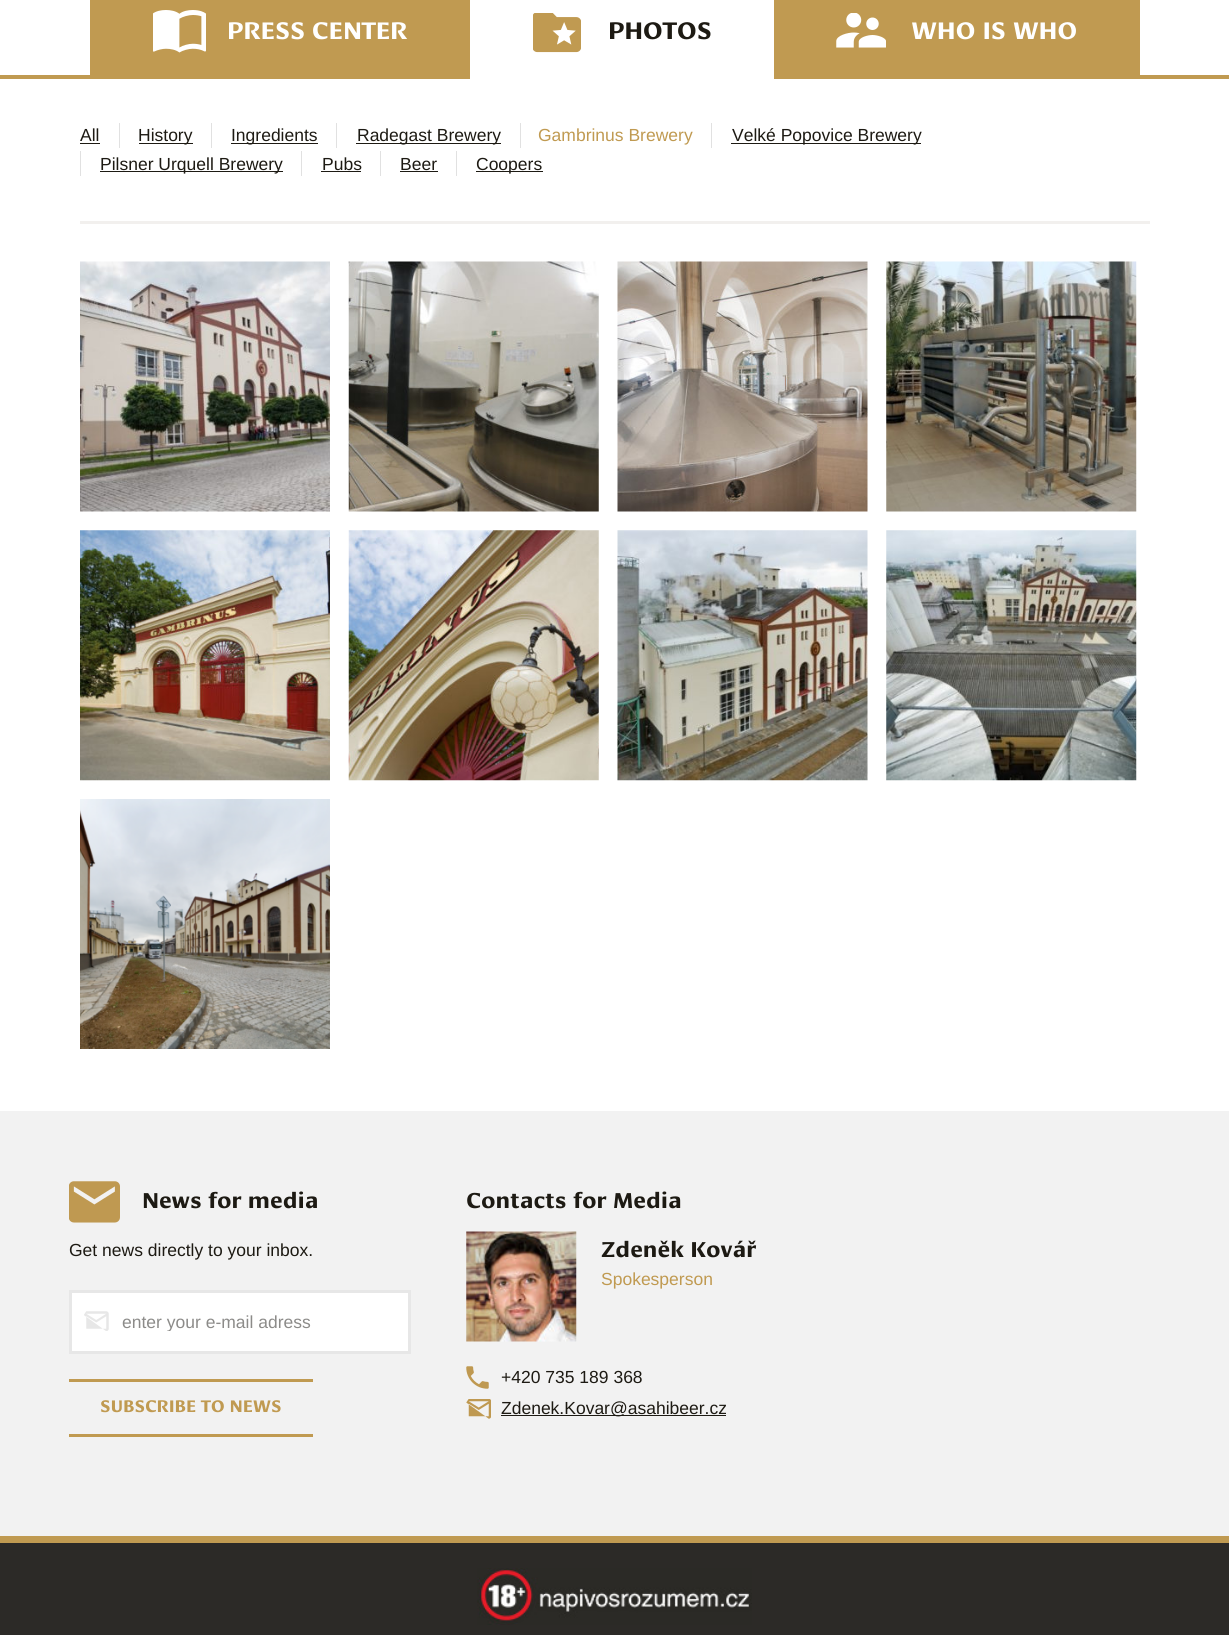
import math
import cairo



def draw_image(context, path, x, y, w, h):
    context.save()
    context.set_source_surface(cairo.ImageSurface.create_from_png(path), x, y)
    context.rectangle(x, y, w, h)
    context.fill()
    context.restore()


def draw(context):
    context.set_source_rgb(1, 1, 1)
    context.paint()
    context.set_source_rgb(192 / 255, 154 / 255, 81 / 255)
    context.rectangle(0, 75, 1229, 4)
    context.fill()
    context.rectangle(90, 0, 380, 75)
    context.fill()
    draw_image(context, "images/1.png", 153, 10, 53, 43)
    context.set_source_rgb(1, 1, 1)
    context.rectangle(470, 75, 304, 4)
    context.fill()
    draw_image(context, "images/2.png", 533, 13, 48, 40)
    context.set_source_rgb(192 / 255, 154 / 255, 81 / 255)
    context.rectangle(774, 0, 366, 75)
    context.fill()
    draw_image(context, "images/3.png", 836, 13, 50, 35)
    context.set_source_rgb(242 / 255, 240 / 255, 238 / 255)
    context.rectangle(80, 221, 1070, 3)
    context.fill()
    context.set_source_rgb(29 / 255, 26 / 255, 19 / 255)
    context.rectangle(80, 143, 20, 1)
    context.fill()
    context.set_source_rgb(225 / 255, 225 / 255, 225 / 255)
    context.rectangle(119, 123, 1, 25)
    context.fill()
    context.set_source_rgb(29 / 255, 26 / 255, 19 / 255)
    context.rectangle(139, 143, 54, 1)
    context.fill()
    context.set_source_rgb(225 / 255, 225 / 255, 225 / 255)
    context.rectangle(211, 123, 1, 25)
    context.fill()
    context.set_source_rgb(29 / 255, 26 / 255, 19 / 255)
    context.rectangle(231, 143, 87, 1)
    context.fill()
    context.set_source_rgb(225 / 255, 225 / 255, 225 / 255)
    context.rectangle(336, 123, 1, 25)
    context.fill()
    context.set_source_rgb(29 / 255, 26 / 255, 19 / 255)
    context.rectangle(356, 143, 145, 1)
    context.fill()
    context.set_source_rgb(225 / 255, 225 / 255, 225 / 255)
    context.rectangle(520, 123, 1, 25)
    context.fill()
    context.rectangle(711, 123, 1, 25)
    context.fill()
    context.set_source_rgb(29 / 255, 26 / 255, 19 / 255)
    context.rectangle(731, 143, 190, 1)
    context.fill()
    context.set_source_rgb(225 / 255, 225 / 255, 225 / 255)
    context.rectangle(80, 151, 1, 25)
    context.fill()
    context.set_source_rgb(29 / 255, 26 / 255, 19 / 255)
    context.rectangle(100, 171, 183, 1)
    context.fill()
    context.set_source_rgb(225 / 255, 225 / 255, 225 / 255)
    context.rectangle(301, 151, 1, 25)
    context.fill()
    context.set_source_rgb(29 / 255, 26 / 255, 19 / 255)
    context.rectangle(321, 171, 40, 1)
    context.fill()
    context.set_source_rgb(225 / 255, 225 / 255, 225 / 255)
    context.rectangle(380, 151, 1, 25)
    context.fill()
    context.set_source_rgb(29 / 255, 26 / 255, 19 / 255)
    context.rectangle(400, 171, 38, 1)
    context.fill()
    context.set_source_rgb(225 / 255, 225 / 255, 225 / 255)
    context.rectangle(456, 151, 1, 25)
    context.fill()
    context.set_source_rgb(29 / 255, 26 / 255, 19 / 255)
    context.rectangle(476, 171, 67, 1)
    context.fill()
    draw_image(context, "images/4.png", 80, 261, 250, 251)
    draw_image(context, "images/5.png", 348, 261, 251, 251)
    draw_image(context, "images/6.png", 617, 261, 251, 251)
    draw_image(context, "images/7.png", 886, 261, 251, 251)
    draw_image(context, "images/8.png", 80, 530, 250, 251)
    draw_image(context, "images/9.png", 348, 530, 251, 251)
    draw_image(context, "images/10.png", 617, 530, 251, 251)
    draw_image(context, "images/11.png", 886, 530, 251, 251)
    draw_image(context, "images/12.png", 80, 799, 250, 250)
    context.set_source_rgb(242 / 255, 242 / 255, 242 / 255)
    context.rectangle(0, 1111, 1229, 425)
    context.fill()
    draw_image(context, "images/13.png", 69, 1181, 51, 42)
    context.set_source_rgb(1, 1, 1)
    context.rectangle(72, 1293, 336, 58)
    context.fill()
    draw_image(context, "images/14.png", 84, 1311, 25, 20)
    context.rectangle(70.5, 1291.5, 339, 61)
    context.set_source_rgb(231 / 255, 231 / 255, 231 / 255)
    context.set_line_width(3)
    context.stroke()
    context.set_source_rgb(192 / 255, 154 / 255, 81 / 255)
    context.rectangle(69, 1379, 244, 3)
    context.fill()
    context.rectangle(69, 1434, 244, 3)
    context.fill()
    draw_image(context, "images/15.png", 466, 1231, 111, 111)
    draw_image(context, "images/16.png", 466, 1366, 23, 23)
    draw_image(context, "images/17.png", 466, 1399, 25, 20)
    context.set_source_rgb(29 / 255, 26 / 255, 19 / 255)
    context.rectangle(501, 1415, 225, 1)
    context.fill()
    context.set_source_rgb(44 / 255, 42 / 255, 39 / 255)
    context.rectangle(0, 1543, 1229, 92)
    context.fill()
    context.set_source_rgb(192 / 255, 154 / 255, 81 / 255)
    context.rectangle(0, 1536, 1229, 7)
    context.fill()
    draw_image(context, "images/18.png", 477, 1568, 275, 57)
    context.select_font_face("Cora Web", cairo.FontSlant.NORMAL, cairo.FontWeight.BOLD)
    context.set_font_size(25)
    context.set_source_rgb(1, 1, 1)
    context.move_to(227, 39)
    context.show_text("PRESS CENTER")
    context.set_source_rgb(29 / 255, 26 / 255, 19 / 255)
    context.move_to(608, 39)
    context.show_text("PHOTOS")
    context.set_source_rgb(1, 1, 1)
    context.move_to(911, 39)
    context.show_text("WHO IS WHO")
    context.select_font_face("Liberation Sans")
    context.set_font_size(17.5)
    context.set_source_rgb(29 / 255, 26 / 255, 19 / 255)
    context.move_to(80, 141)
    context.show_text("All")
    context.move_to(138, 141)
    context.show_text("History")
    context.move_to(231, 141)
    context.show_text("Ingredients")
    context.move_to(357, 141)
    context.show_text("Radegast Brewery")
    context.set_source_rgb(192 / 255, 154 / 255, 81 / 255)
    context.move_to(538, 141)
    context.show_text("Gambrinus Brewery")
    context.set_source_rgb(29 / 255, 26 / 255, 19 / 255)
    context.move_to(732, 141)
    context.show_text("Velké Popovice Brewery")
    context.move_to(100, 170)
    context.show_text("Pilsner Urquell Brewery")
    context.move_to(322, 170)
    context.show_text("Pubs")
    context.move_to(400, 170)
    context.show_text("Beer")
    context.move_to(476, 170)
    context.show_text("Coopers")
    context.select_font_face("Cora Web", cairo.FontSlant.NORMAL, cairo.FontWeight.BOLD)
    context.set_font_size(22.5)
    context.move_to(142, 1208)
    context.show_text("News for media")
    context.select_font_face("Liberation Sans")
    context.set_font_size(17.5)
    context.move_to(69, 1256)
    context.show_text("Get news directly to your inbox.")
    context.save()
    context.rectangle(121, 1311, 268, 20)
    context.clip()
    context.set_source_rgb(140 / 255, 139 / 255, 137 / 255)
    context.move_to(122, 1328)
    context.show_text("enter your e-mail adress")
    context.restore()
    context.select_font_face("Cora Web", cairo.FontSlant.NORMAL, cairo.FontWeight.BOLD)
    context.set_source_rgb(192 / 255, 154 / 255, 81 / 255)
    context.move_to(100, 1412)
    context.show_text("SUBSCRIBE TO NEWS")
    context.set_font_size(22.5)
    context.set_source_rgb(29 / 255, 26 / 255, 19 / 255)
    context.move_to(466, 1208)
    context.show_text("Contacts for Media")
    context.move_to(601, 1257)
    context.show_text("Zdeněk Kovář")
    context.select_font_face("Liberation Sans")
    context.set_font_size(17.5)
    context.set_source_rgb(192 / 255, 154 / 255, 81 / 255)
    context.move_to(601, 1285)
    context.show_text("Spokesperson")
    context.set_source_rgb(29 / 255, 26 / 255, 19 / 255)
    context.move_to(501, 1383)
    context.show_text("+420 735 189 368")
    context.move_to(501, 1414)
    context.show_text("Zdenek.Kovar@asahibeer.cz")


surface = cairo.ImageSurface(cairo.Format.RGB24, 1229, 1635)
context = cairo.Context(surface)
options = cairo.FontOptions()
options.set_hint_metrics(cairo.HintMetrics.OFF)
options.set_hint_style(cairo.HintStyle.NONE)
context.set_font_options(options)
context.set_miter_limit(4)
draw(context)
surface.write_to_png("out.png")
